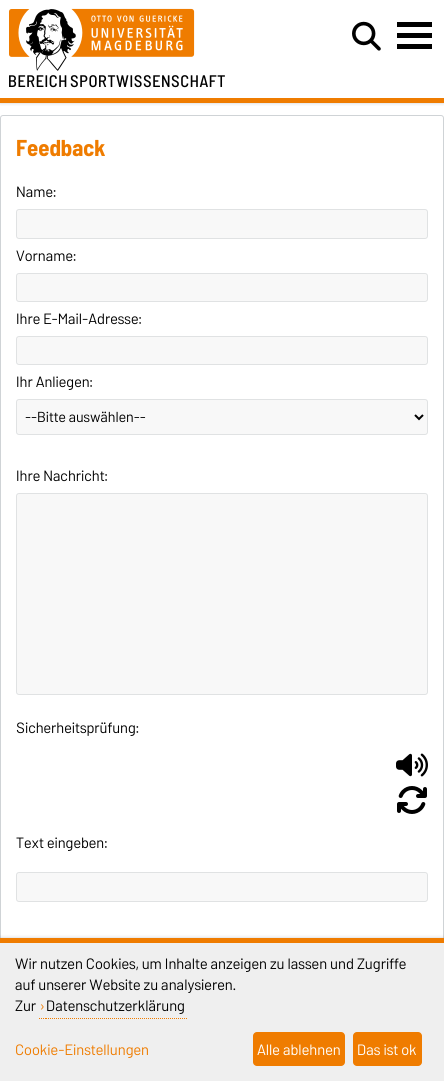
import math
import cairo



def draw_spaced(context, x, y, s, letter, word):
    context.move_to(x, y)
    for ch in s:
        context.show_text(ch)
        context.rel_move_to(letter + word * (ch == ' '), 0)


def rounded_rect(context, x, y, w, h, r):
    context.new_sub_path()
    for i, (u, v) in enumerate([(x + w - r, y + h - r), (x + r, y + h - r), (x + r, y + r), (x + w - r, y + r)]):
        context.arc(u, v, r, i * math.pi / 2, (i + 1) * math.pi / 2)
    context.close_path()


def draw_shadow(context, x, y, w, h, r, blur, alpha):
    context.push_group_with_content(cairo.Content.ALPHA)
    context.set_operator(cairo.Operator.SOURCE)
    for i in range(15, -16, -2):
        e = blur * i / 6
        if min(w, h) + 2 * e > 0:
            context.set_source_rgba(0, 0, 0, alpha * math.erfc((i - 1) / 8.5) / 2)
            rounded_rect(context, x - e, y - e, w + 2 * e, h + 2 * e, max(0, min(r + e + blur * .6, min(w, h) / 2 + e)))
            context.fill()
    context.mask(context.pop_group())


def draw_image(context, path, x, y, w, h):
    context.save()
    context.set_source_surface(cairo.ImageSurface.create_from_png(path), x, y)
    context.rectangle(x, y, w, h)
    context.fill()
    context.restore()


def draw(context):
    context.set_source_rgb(1, 1, 1)
    context.paint()
    context.save()
    context.rectangle(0, 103, 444, 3)
    context.clip()
    context.set_source_rgb(67 / 255, 71 / 255, 85 / 255)
    draw_shadow(context, 0, 0, 444, 103, 0, 2, 0.27)
    context.restore()
    context.set_source_rgb(239 / 255, 124 / 255, 0)
    context.rectangle(0, 98, 444, 5)
    context.fill()
    draw_image(context, "images/1.png", 9, 8, 186, 63)
    draw_image(context, "images/2.png", 352, 21, 29, 30)
    context.set_source_rgb(0, 0, 0)
    context.rectangle(397, 22, 35, 5)
    context.fill()
    context.rectangle(397, 33, 35, 5)
    context.fill()
    context.rectangle(397, 44, 35, 5)
    context.fill()
    rounded_rect(context, 0.5, 115.5, 443, 877, 2.5)
    context.set_source_rgb(207 / 255, 211 / 255, 214 / 255)
    context.set_line_width(1)
    context.stroke()
    context.set_source_rgb(248 / 255, 248 / 255, 248 / 255)
    rounded_rect(context, 16.5, 209.5, 411, 29, 2.5)
    context.fill_preserve()
    context.set_source_rgb(224 / 255, 226 / 255, 227 / 255)
    context.stroke()
    context.set_source_rgb(248 / 255, 248 / 255, 248 / 255)
    rounded_rect(context, 16.5, 273.5, 411, 28, 2.5)
    context.fill_preserve()
    context.set_source_rgb(224 / 255, 226 / 255, 227 / 255)
    context.stroke()
    context.set_source_rgb(248 / 255, 248 / 255, 248 / 255)
    rounded_rect(context, 16.5, 336.5, 411, 28, 2.5)
    context.fill_preserve()
    context.set_source_rgb(224 / 255, 226 / 255, 227 / 255)
    context.stroke()
    context.set_source_rgb(248 / 255, 248 / 255, 248 / 255)
    rounded_rect(context, 16.5, 399.5, 411, 35, 2.5)
    context.fill_preserve()
    context.set_source_rgb(224 / 255, 226 / 255, 227 / 255)
    context.stroke()
    context.new_path()
    context.move_to(415, 415)
    context.line_to(419, 419)
    context.line_to(423, 415)
    context.set_source_rgb(0, 0, 0)
    context.set_line_width(2)
    context.stroke()
    context.set_source_rgb(248 / 255, 248 / 255, 248 / 255)
    rounded_rect(context, 16.5, 493.5, 411, 201, 2.5)
    context.fill_preserve()
    context.set_source_rgb(224 / 255, 226 / 255, 227 / 255)
    context.set_line_width(1)
    context.stroke()
    draw_image(context, "images/3.png", 396, 753, 32, 24)
    draw_image(context, "images/4.png", 397, 786, 30, 28)
    context.set_source_rgb(248 / 255, 248 / 255, 248 / 255)
    rounded_rect(context, 16.5, 872.5, 411, 29, 2.5)
    context.fill_preserve()
    context.set_source_rgb(224 / 255, 226 / 255, 227 / 255)
    context.stroke()
    context.set_source_rgb(67 / 255, 71 / 255, 85 / 255)
    draw_shadow(context, 0, 938, 444, 143, 0, 2, 0.27)
    context.set_source_rgb(239 / 255, 239 / 255, 239 / 255)
    context.rectangle(0, 943, 444, 138)
    context.fill()
    context.set_source_rgb(239 / 255, 124 / 255, 0)
    context.rectangle(0, 938, 444, 5)
    context.fill()
    context.new_path()
    context.move_to(39, 1018.5)
    context.line_to(40, 1018.5)
    context.move_to(41, 1018.5)
    context.line_to(42, 1018.5)
    context.move_to(43, 1018.5)
    context.line_to(44, 1018.5)
    context.move_to(45, 1018.5)
    context.line_to(46, 1018.5)
    context.stroke()
    context.new_path()
    context.move_to(46, 1018.5)
    context.line_to(187, 1018.5)
    context.set_dash([1, 1])
    context.stroke()
    rounded_rect(context, 253, 1032, 92, 34, 4)
    context.fill()
    rounded_rect(context, 353, 1032, 69, 34, 4)
    context.fill()
    context.select_font_face("Barlow Semi Condensed Medium")
    context.set_font_size(16.75)
    context.set_source_rgb(0, 0, 0)
    draw_spaced(context, 8, 87, "BEREICH", 0.6, 0)
    draw_spaced(context, 70, 87, "SPORTWISSENSCHAFT", 0.6, 0)
    context.select_font_face("Barlow Semi Condensed", cairo.FontSlant.NORMAL, cairo.FontWeight.BOLD)
    context.set_font_size(23)
    context.set_source_rgb(239 / 255, 124 / 255, 0)
    context.move_to(16, 156)
    context.show_text("Feedback")
    context.select_font_face("Barlow")
    context.set_font_size(14.9)
    context.set_source_rgb(0, 0, 0)
    context.move_to(16, 197)
    context.show_text("Name:")
    context.move_to(16, 261)
    context.show_text("Vorname:")
    context.move_to(16, 324)
    context.show_text("Ihre E-Mail-Adresse:")
    context.move_to(16, 387)
    context.show_text("Ihr Anliegen:")
    context.set_font_size(14.5)
    context.move_to(25, 422)
    context.show_text("--Bitte auswählen--")
    context.set_font_size(14.9)
    context.move_to(16, 481)
    context.show_text("Ihre Nachricht:")
    context.move_to(16, 733)
    context.show_text("Sicherheitsprüfung:")
    context.move_to(16, 848)
    context.show_text("Text eingeben:")
    context.set_font_size(15)
    context.move_to(15, 969)
    context.show_text("Wir nutzen Cookies, um Inhalte anzeigen zu lassen und Zugriffe")
    context.move_to(15, 990)
    context.show_text("auf unserer Website zu analysieren.")
    context.move_to(15, 1011)
    context.show_text("Zur")
    context.set_font_size(14.5)
    context.set_source_rgb(239 / 255, 124 / 255, 0)
    context.move_to(40, 1011)
    context.show_text("›")
    context.set_font_size(15)
    context.set_source_rgb(0, 0, 0)
    context.move_to(46, 1011)
    context.show_text("Datenschutzerklärung")
    context.set_source_rgb(239 / 255, 124 / 255, 0)
    context.move_to(15, 1055)
    context.show_text("Cookie-Einstellungen")
    context.set_source_rgb(1, 1, 1)
    context.move_to(257, 1055)
    context.show_text("Alle ablehnen")
    context.move_to(357, 1055)
    context.show_text("Das ist ok")


surface = cairo.ImageSurface(cairo.Format.RGB24, 444, 1081)
context = cairo.Context(surface)
options = cairo.FontOptions()
options.set_hint_metrics(cairo.HintMetrics.OFF)
options.set_hint_style(cairo.HintStyle.NONE)
context.set_font_options(options)
context.set_miter_limit(4)
draw(context)
surface.write_to_png("out.png")
